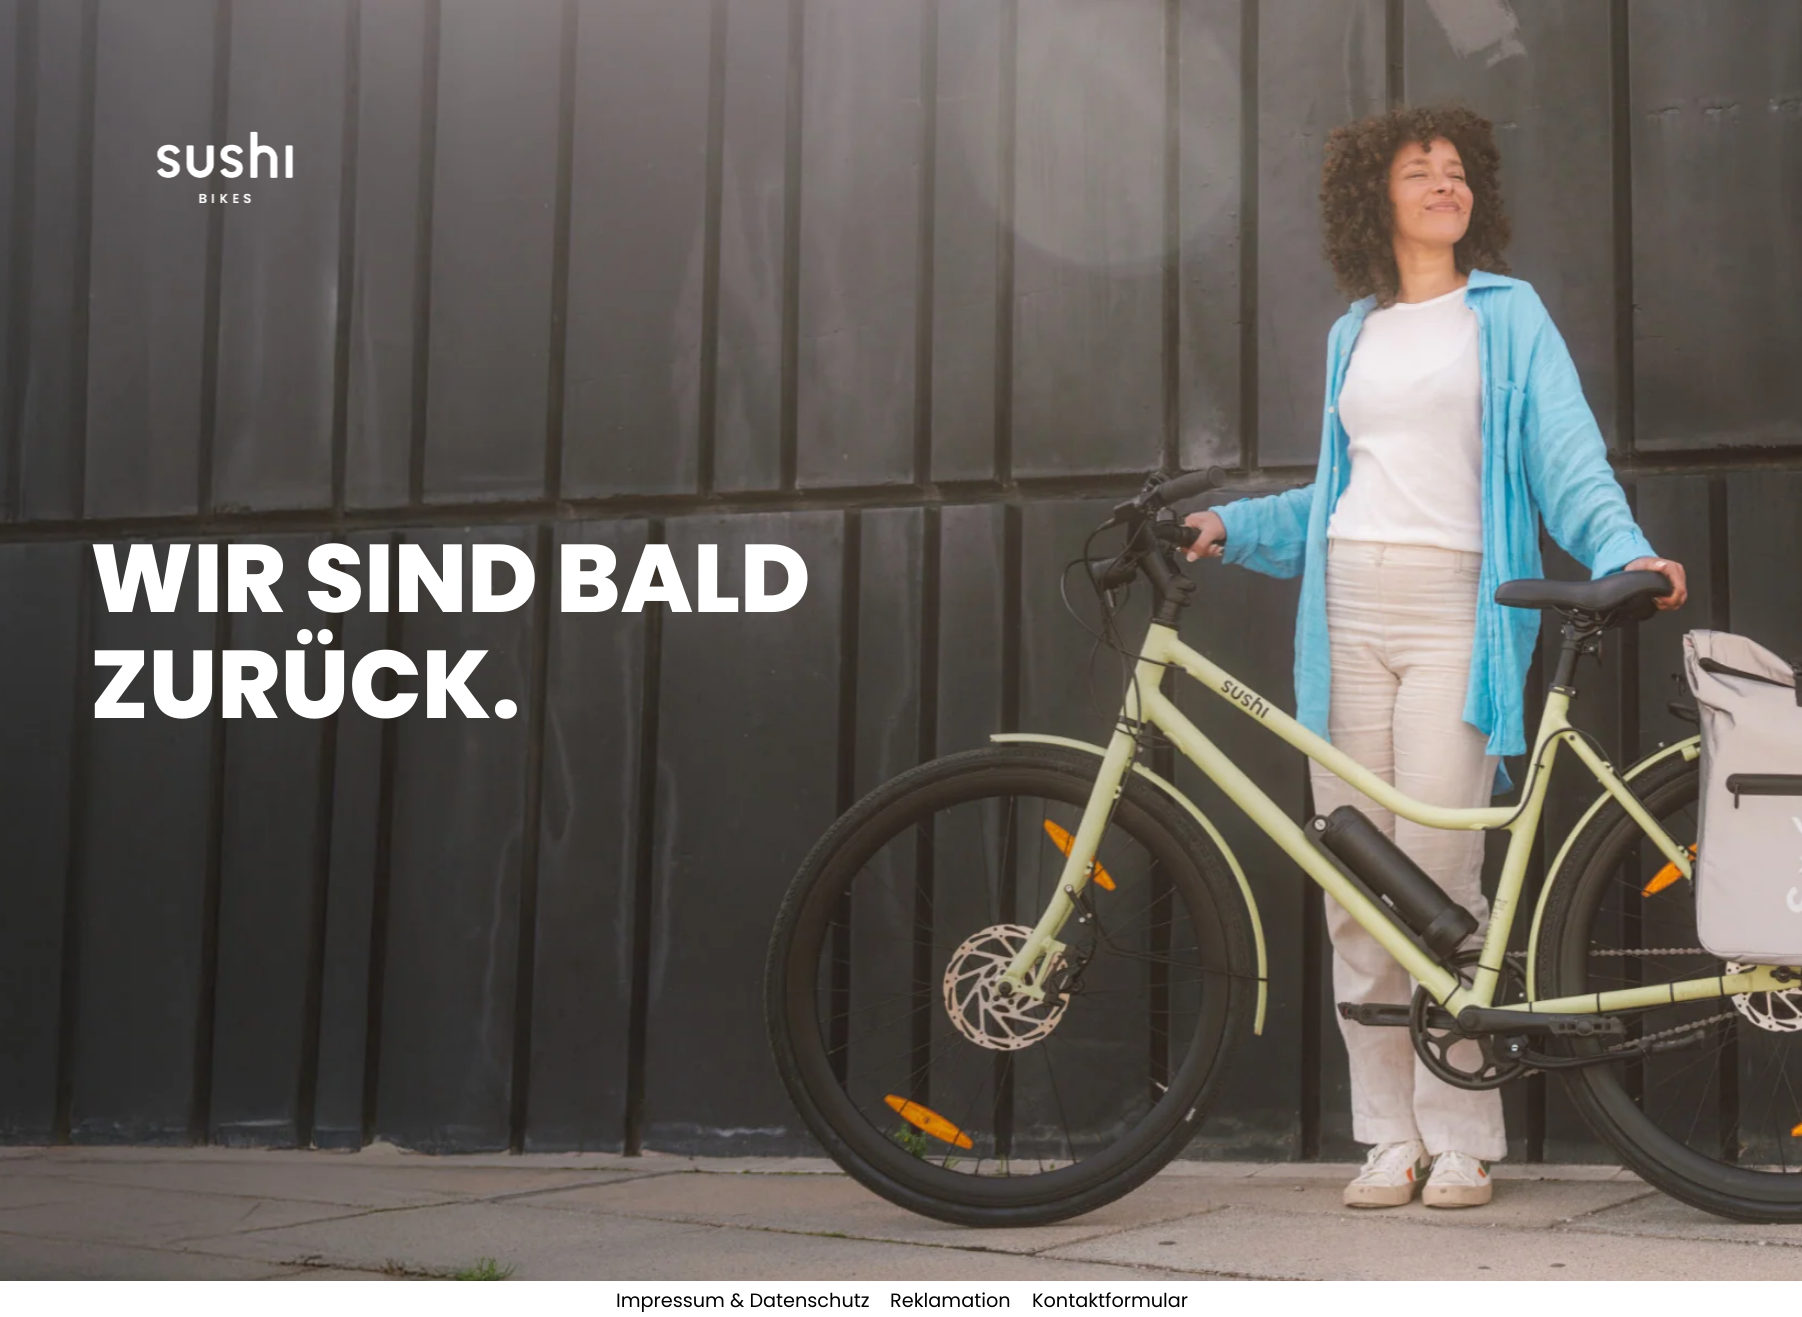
import math
import cairo



def draw_image(context, path, x, y, w, h):
    context.save()
    context.set_source_surface(cairo.ImageSurface.create_from_png(path), x, y)
    context.rectangle(x, y, w, h)
    context.fill()
    context.restore()


def draw(context):
    context.set_source_rgb(1, 1, 1)
    context.paint()
    draw_image(context, "images/1.png", 0, 0, 1802, 1281)
    draw_image(context, "images/2.png", 156, 131, 138, 73)
    context.select_font_face("Poppins ExtraBold")
    context.set_font_size(96)
    context.set_source_rgb(1, 1, 1)
    context.move_to(90, 612)
    context.show_text("WIR SIND BALD")
    context.move_to(90, 718)
    context.show_text("ZURÜCK.")
    context.select_font_face("Poppins")
    context.set_font_size(19.25)
    context.set_source_rgb(0, 0, 0)
    context.move_to(616, 1307)
    context.show_text("Impressum & Datenschutz")
    context.move_to(890, 1307)
    context.show_text("Reklamation")
    context.move_to(1032, 1307)
    context.show_text("Kontaktformular")


surface = cairo.ImageSurface(cairo.Format.RGB24, 1802, 1317)
context = cairo.Context(surface)
options = cairo.FontOptions()
options.set_hint_metrics(cairo.HintMetrics.OFF)
options.set_hint_style(cairo.HintStyle.NONE)
context.set_font_options(options)
context.set_miter_limit(4)
draw(context)
surface.write_to_png("out.png")
